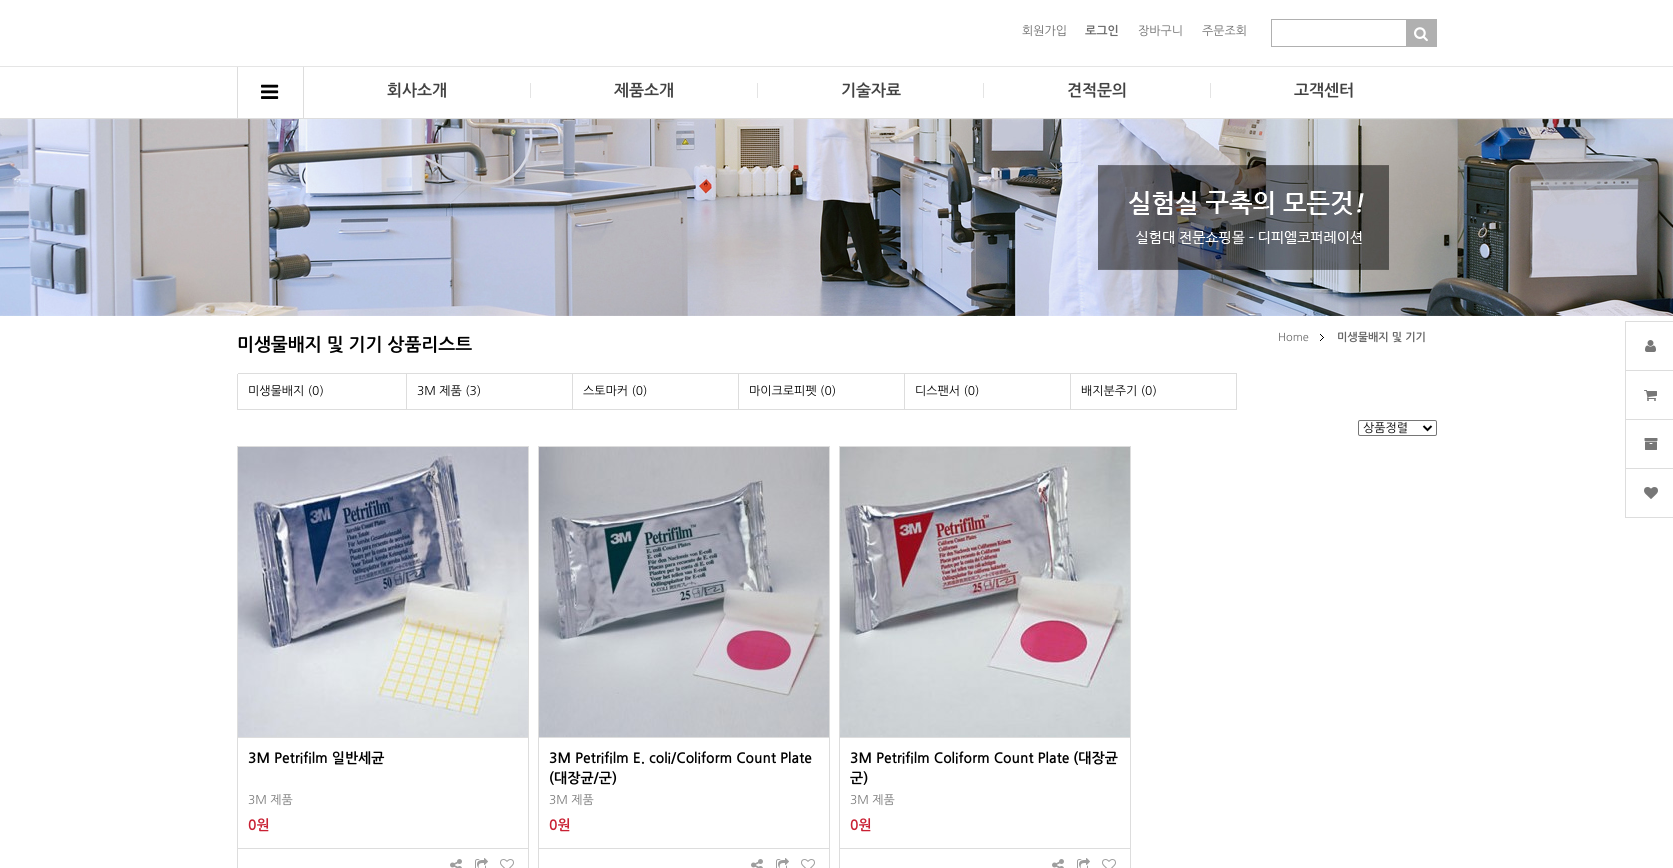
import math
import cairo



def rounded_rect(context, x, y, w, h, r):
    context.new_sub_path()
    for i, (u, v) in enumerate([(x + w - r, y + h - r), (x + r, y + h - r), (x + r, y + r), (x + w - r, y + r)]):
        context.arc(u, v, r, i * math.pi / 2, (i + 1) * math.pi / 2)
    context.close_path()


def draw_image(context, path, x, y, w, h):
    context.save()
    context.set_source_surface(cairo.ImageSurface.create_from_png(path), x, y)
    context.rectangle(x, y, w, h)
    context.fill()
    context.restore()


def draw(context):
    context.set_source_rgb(1, 1, 1)
    context.paint()
    context.rectangle(1271.5, 19.5, 165, 27)
    context.set_source_rgb(176 / 255, 176 / 255, 176 / 255)
    context.set_line_width(1)
    context.stroke()
    context.rectangle(1406, 20, 30, 26)
    context.fill()
    draw_image(context, "images/1.png", 1414, 27, 14, 15)
    context.set_source_rgb(229 / 255, 229 / 255, 229 / 255)
    context.rectangle(0, 66, 1673, 1)
    context.fill()
    context.set_source_rgb(221 / 255, 221 / 255, 221 / 255)
    context.rectangle(0, 118, 1673, 1)
    context.fill()
    context.rectangle(303, 67, 1, 51)
    context.fill()
    context.rectangle(237, 67, 1, 51)
    context.fill()
    draw_image(context, "images/2.png", 261, 84, 18, 15)
    context.set_source_rgb(228 / 255, 228 / 255, 228 / 255)
    context.rectangle(530, 83, 1, 15)
    context.fill()
    context.rectangle(757, 83, 1, 15)
    context.fill()
    context.rectangle(983, 83, 1, 15)
    context.fill()
    context.rectangle(1210, 83, 1, 15)
    context.fill()
    draw_image(context, "images/3.png", 0, 119, 1673, 197)
    draw_image(context, "images/4.png", 1320, 334, 4, 7)
    context.set_source_rgb(221 / 255, 221 / 255, 221 / 255)
    context.rectangle(237, 374, 1, 36)
    context.fill()
    context.rectangle(238, 373, 999, 1)
    context.fill()
    context.rectangle(406, 373, 1, 37)
    context.fill()
    context.rectangle(238, 409, 169, 1)
    context.fill()
    context.rectangle(572, 373, 1, 37)
    context.fill()
    context.rectangle(407, 409, 166, 1)
    context.fill()
    context.rectangle(738, 373, 1, 37)
    context.fill()
    context.rectangle(573, 409, 166, 1)
    context.fill()
    context.rectangle(904, 373, 1, 37)
    context.fill()
    context.rectangle(739, 409, 166, 1)
    context.fill()
    context.rectangle(1070, 373, 1, 37)
    context.fill()
    context.rectangle(905, 409, 166, 1)
    context.fill()
    context.rectangle(1236, 373, 1, 37)
    context.fill()
    context.rectangle(1071, 409, 166, 1)
    context.fill()
    rounded_rect(context, 1358.5, 420.5, 78, 15, 1.5)
    context.set_source_rgb(118 / 255, 118 / 255, 118 / 255)
    context.stroke()
    context.new_path()
    context.move_to(1423.5, 426)
    context.line_to(1427.5, 430)
    context.line_to(1431.5, 426)
    context.set_source_rgb(0, 0, 0)
    context.set_line_width(2)
    context.stroke()
    context.rectangle(237.5, 446.5, 291, 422)
    context.set_source_rgb(221 / 255, 221 / 255, 221 / 255)
    context.set_line_width(1)
    context.stroke()
    context.rectangle(238, 737, 290, 1)
    context.fill()
    draw_image(context, "images/5.png", 238, 447, 290, 290)
    context.rectangle(238, 848, 290, 1)
    context.fill()
    draw_image(context, "images/6.png", 450, 859, 12, 9)
    draw_image(context, "images/7.png", 475, 858, 13, 10)
    draw_image(context, "images/8.png", 500, 859, 14, 9)
    context.rectangle(538.5, 446.5, 291, 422)
    context.stroke()
    context.rectangle(539, 737, 290, 1)
    context.fill()
    draw_image(context, "images/9.png", 539, 447, 290, 290)
    context.rectangle(539, 848, 290, 1)
    context.fill()
    draw_image(context, "images/6.png", 751, 859, 12, 9)
    draw_image(context, "images/7.png", 776, 858, 13, 10)
    draw_image(context, "images/8.png", 801, 859, 14, 9)
    context.rectangle(839.5, 446.5, 291, 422)
    context.stroke()
    context.rectangle(840, 737, 290, 1)
    context.fill()
    draw_image(context, "images/10.png", 840, 447, 290, 290)
    context.rectangle(840, 848, 290, 1)
    context.fill()
    draw_image(context, "images/6.png", 1052, 859, 12, 9)
    draw_image(context, "images/7.png", 1077, 858, 13, 10)
    draw_image(context, "images/8.png", 1102, 859, 14, 9)
    context.rectangle(1625, 321, 48, 1)
    context.fill()
    context.rectangle(1625, 321, 1, 50)
    context.fill()
    draw_image(context, "images/11.png", 1645, 340, 11, 12)
    context.rectangle(1625, 370, 48, 1)
    context.fill()
    context.rectangle(1625, 370, 1, 50)
    context.fill()
    draw_image(context, "images/12.png", 1644, 390, 13, 11)
    context.rectangle(1625, 419, 48, 1)
    context.fill()
    context.rectangle(1625, 419, 1, 50)
    context.fill()
    draw_image(context, "images/13.png", 1644, 438, 14, 12)
    context.rectangle(1625, 468, 48, 1)
    context.fill()
    context.rectangle(1625, 517, 48, 1)
    context.fill()
    context.rectangle(1625, 468, 1, 50)
    context.fill()
    draw_image(context, "images/14.png", 1644, 487, 14, 12)
    context.select_font_face("NanumGothic")
    context.set_font_size(12)
    context.set_source_rgb(108 / 255, 108 / 255, 108 / 255)
    context.move_to(1022, 35)
    context.show_text("회원가입")
    context.select_font_face("NanumGothic", cairo.FontSlant.NORMAL, cairo.FontWeight.BOLD)
    context.move_to(1085, 35)
    context.show_text("로그인")
    context.select_font_face("NanumGothic")
    context.move_to(1138, 35)
    context.show_text("장바구니")
    context.move_to(1202, 35)
    context.show_text("주문조회")
    context.select_font_face("NanumGothic", cairo.FontSlant.NORMAL, cairo.FontWeight.BOLD)
    context.set_font_size(16)
    context.set_source_rgb(66 / 255, 66 / 255, 66 / 255)
    context.move_to(387, 96)
    context.show_text("회사소개")
    context.move_to(614, 96)
    context.show_text("제품소개")
    context.move_to(841, 96)
    context.show_text("기술자료")
    context.move_to(1067, 96)
    context.show_text("견적문의")
    context.move_to(1294, 96)
    context.show_text("고객센터")
    context.select_font_face("NanumGothic")
    context.set_font_size(11)
    context.set_source_rgb(102 / 255, 102 / 255, 102 / 255)
    context.move_to(1278, 341)
    context.show_text("Home")
    context.select_font_face("NanumGothic", cairo.FontSlant.NORMAL, cairo.FontWeight.BOLD)
    context.move_to(1337, 341)
    context.show_text("미생물배지 및 기기")
    context.select_font_face("NanumGothic")
    context.set_font_size(12)
    context.set_source_rgb(0, 0, 0)
    context.move_to(248, 395)
    context.show_text("미생물배지 (0)")
    context.move_to(417, 395)
    context.show_text("3M 제품 (3)")
    context.move_to(583, 395)
    context.show_text("스토마커 (0)")
    context.move_to(749, 395)
    context.show_text("마이크로피펫 (0)")
    context.move_to(915, 395)
    context.show_text("디스팬서 (0)")
    context.move_to(1081, 395)
    context.show_text("배지분주기 (0)")
    context.move_to(1363, 432)
    context.show_text("상품정렬")
    context.select_font_face("NanumGothic", cairo.FontSlant.NORMAL, cairo.FontWeight.BOLD)
    context.set_font_size(14)
    context.move_to(248, 763)
    context.show_text("3M Petrifilm 일반세균")
    context.select_font_face("NanumGothic")
    context.set_font_size(12)
    context.set_source_rgb(119 / 255, 119 / 255, 119 / 255)
    context.move_to(248, 804)
    context.show_text("3M 제품")
    context.select_font_face("NanumGothic", cairo.FontSlant.NORMAL, cairo.FontWeight.BOLD)
    context.set_font_size(14)
    context.set_source_rgb(201 / 255, 32 / 255, 51 / 255)
    context.move_to(248, 830)
    context.show_text("0원")
    context.set_source_rgb(0, 0, 0)
    context.move_to(549, 763)
    context.show_text("3M Petrifilm E. coli/Coliform Count Plate")
    context.move_to(549, 783)
    context.show_text("(대장균/군)")
    context.select_font_face("NanumGothic")
    context.set_font_size(12)
    context.set_source_rgb(119 / 255, 119 / 255, 119 / 255)
    context.move_to(549, 804)
    context.show_text("3M 제품")
    context.select_font_face("NanumGothic", cairo.FontSlant.NORMAL, cairo.FontWeight.BOLD)
    context.set_font_size(14)
    context.set_source_rgb(201 / 255, 32 / 255, 51 / 255)
    context.move_to(549, 830)
    context.show_text("0원")
    context.set_source_rgb(0, 0, 0)
    context.move_to(850, 763)
    context.show_text("3M Petrifilm Coliform Count Plate (대장균")
    context.move_to(850, 783)
    context.show_text("군)")
    context.select_font_face("NanumGothic")
    context.set_font_size(12)
    context.set_source_rgb(119 / 255, 119 / 255, 119 / 255)
    context.move_to(850, 804)
    context.show_text("3M 제품")
    context.select_font_face("NanumGothic", cairo.FontSlant.NORMAL, cairo.FontWeight.BOLD)
    context.set_font_size(14)
    context.set_source_rgb(201 / 255, 32 / 255, 51 / 255)
    context.move_to(850, 830)
    context.show_text("0원")
    context.set_font_size(18)
    context.set_source_rgb(0, 0, 0)
    context.move_to(237, 351)
    context.show_text("미생물배지 및 기기 상품리스트")


surface = cairo.ImageSurface(cairo.Format.RGB24, 1673, 868)
context = cairo.Context(surface)
options = cairo.FontOptions()
options.set_hint_metrics(cairo.HintMetrics.OFF)
options.set_hint_style(cairo.HintStyle.NONE)
context.set_font_options(options)
context.set_miter_limit(4)
draw(context)
surface.write_to_png("out.png")
